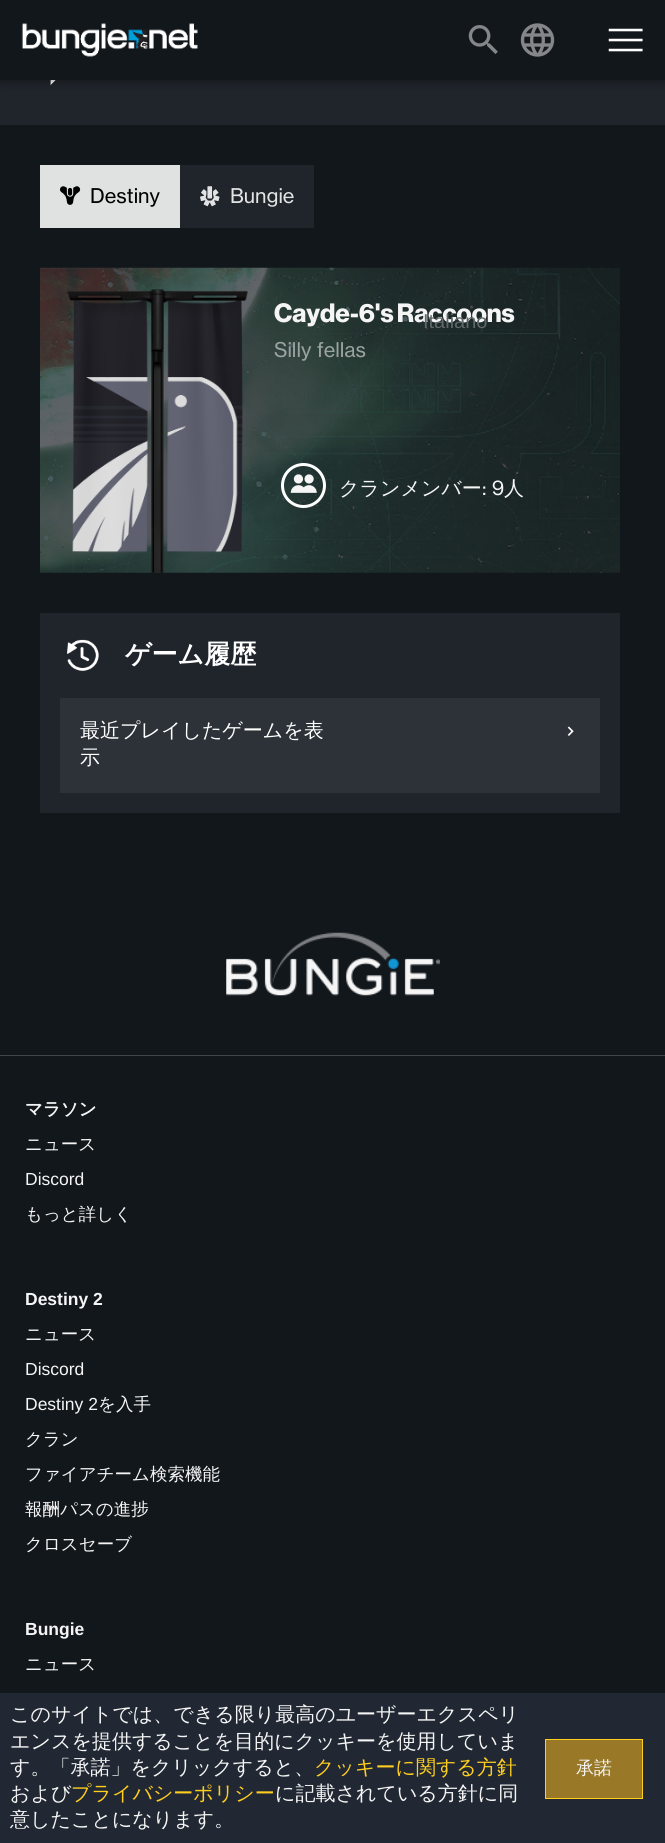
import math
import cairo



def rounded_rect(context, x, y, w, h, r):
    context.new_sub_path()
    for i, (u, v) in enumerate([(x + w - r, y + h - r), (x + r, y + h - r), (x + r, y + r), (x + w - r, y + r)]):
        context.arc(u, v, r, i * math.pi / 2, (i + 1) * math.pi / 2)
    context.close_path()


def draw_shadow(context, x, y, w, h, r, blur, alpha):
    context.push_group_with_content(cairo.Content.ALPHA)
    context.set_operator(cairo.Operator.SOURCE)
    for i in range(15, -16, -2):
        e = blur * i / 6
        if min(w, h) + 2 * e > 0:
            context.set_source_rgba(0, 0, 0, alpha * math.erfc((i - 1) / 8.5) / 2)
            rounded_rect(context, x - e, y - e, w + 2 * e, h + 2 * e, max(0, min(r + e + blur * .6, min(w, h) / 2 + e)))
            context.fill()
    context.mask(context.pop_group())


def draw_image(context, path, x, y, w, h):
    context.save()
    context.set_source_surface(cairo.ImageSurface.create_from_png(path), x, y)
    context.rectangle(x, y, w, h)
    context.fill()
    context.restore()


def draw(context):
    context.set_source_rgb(18 / 255, 23 / 255, 28 / 255)
    context.paint()
    context.set_source_rgb(32 / 255, 37 / 255, 43 / 255)
    context.rectangle(0, 80, 665, 45)
    context.fill()
    draw_image(context, "images/1.png", 50, 80, 6, 6)
    context.set_source_rgb(224 / 255, 225 / 255, 225 / 255)
    context.rectangle(40, 165, 140, 63)
    context.fill()
    draw_image(context, "images/2.png", 60, 186, 21, 19)
    context.set_source_rgb(32 / 255, 37 / 255, 43 / 255)
    context.rectangle(180, 165, 134, 63)
    context.fill()
    draw_image(context, "images/3.png", 200, 186, 20, 21)
    draw_image(context, "images/4.png", 40, 267, 580, 306)
    draw_image(context, "images/5.png", 67, 289, 181, 284)
    context.arc(303.5, 485.5, 21, 0, 2 * math.pi)
    context.set_source_rgb(1, 1, 1)
    context.set_line_width(3)
    context.stroke()
    draw_image(context, "images/6.png", 290, 474, 27, 19)
    context.set_source_rgb(32 / 255, 37 / 255, 43 / 255)
    context.rectangle(40, 613, 580, 200)
    context.fill()
    draw_image(context, "images/7.png", 67, 639, 32, 32)
    context.set_source_rgb(45 / 255, 50 / 255, 56 / 255)
    context.rectangle(60, 698, 540, 95)
    context.fill()
    draw_image(context, "images/8.png", 567, 726, 7, 10)
    context.set_source_rgb(0, 0, 0)
    draw_shadow(context, 0, 0, 665, 80, 0, 6, 0.5)
    context.set_source_rgb(18 / 255, 23 / 255, 28 / 255)
    context.rectangle(0, 0, 665, 80)
    context.fill()
    draw_image(context, "images/9.png", 21, 23, 177, 34)
    draw_image(context, "images/10.png", 608, 28, 35, 24)
    draw_image(context, "images/11.png", 468, 25, 30, 29)
    draw_image(context, "images/12.png", 520, 23, 35, 34)
    draw_image(context, "images/13.png", 226, 932, 214, 64)
    context.set_source_rgb(65 / 255, 69 / 255, 73 / 255)
    context.rectangle(0, 1055, 665, 1)
    context.fill()
    context.set_source_rgb(33 / 255, 40 / 255, 51 / 255)
    context.rectangle(0, 1693, 665, 150)
    context.fill()
    context.set_source_rgb(153 / 255, 120 / 255, 40 / 255)
    context.rectangle(546, 1740, 96, 58)
    context.fill()
    context.rectangle(545.5, 1739.5, 97, 59)
    context.set_source_rgb(1, 206 / 255, 31 / 255)
    context.set_line_width(1)
    context.stroke()
    context.select_font_face("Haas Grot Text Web")
    context.set_font_size(20)
    context.set_source_rgb(0, 0, 0)
    context.move_to(90, 203)
    context.show_text("Destiny")
    context.set_source_rgb(226 / 255, 227 / 255, 227 / 255)
    context.move_to(230, 203)
    context.show_text("Bungie")
    context.select_font_face("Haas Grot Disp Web", cairo.FontSlant.NORMAL, cairo.FontWeight.BOLD)
    context.set_font_size(26)
    context.set_source_rgb(245 / 255, 245 / 255, 245 / 255)
    context.move_to(274, 322)
    context.show_text("Cayde-6's Raccoons")
    context.select_font_face("Haas Grot Text Web")
    context.set_font_size(20)
    context.set_source_rgb(155 / 255, 163 / 255, 160 / 255)
    context.move_to(274, 357)
    context.show_text("Silly fellas")
    context.select_font_face("WenQuanYi Zen Hei Medium")
    context.set_source_rgb(245 / 255, 245 / 255, 245 / 255)
    context.move_to(339, 495)
    context.show_text("クランメンバー")
    context.select_font_face("Haas Grot Text Web")
    context.move_to(482, 495)
    context.show_text(": 9")
    context.select_font_face("WenQuanYi Zen Hei Medium")
    context.move_to(504, 495)
    context.show_text("人")
    context.select_font_face("WenQuanYi Zen Hei", cairo.FontSlant.NORMAL, cairo.FontWeight.BOLD)
    context.set_font_size(26)
    context.set_source_rgb(1, 1, 1)
    context.move_to(125, 663)
    context.show_text("ゲーム履歴")
    context.select_font_face("WenQuanYi Zen Hei Medium")
    context.set_font_size(20)
    context.move_to(80, 737)
    context.show_text("最近プレイしたゲームを表")
    context.move_to(80, 764)
    context.show_text("示")
    context.select_font_face("Liberation Sans")
    context.set_source_rgb(95 / 255, 104 / 255, 103 / 255)
    context.move_to(423, 328)
    context.show_text("Italiano")
    context.select_font_face("WenQuanYi Zen Hei", cairo.FontSlant.NORMAL, cairo.FontWeight.BOLD)
    context.set_font_size(17.5)
    context.set_source_rgb(245 / 255, 245 / 255, 245 / 255)
    context.move_to(25, 1115)
    context.show_text("マラソン")
    context.select_font_face("WenQuanYi Zen Hei Medium")
    context.move_to(25, 1150)
    context.show_text("ニュース")
    context.select_font_face("Liberation Sans")
    context.move_to(25, 1185)
    context.show_text("Discord")
    context.select_font_face("WenQuanYi Zen Hei Medium")
    context.move_to(25, 1220)
    context.show_text("もっと詳しく")
    context.select_font_face("Liberation Sans", cairo.FontSlant.NORMAL, cairo.FontWeight.BOLD)
    context.move_to(25, 1305)
    context.show_text("Destiny 2")
    context.select_font_face("WenQuanYi Zen Hei Medium")
    context.move_to(25, 1340)
    context.show_text("ニュース")
    context.select_font_face("Liberation Sans")
    context.move_to(25, 1375)
    context.show_text("Discord")
    context.move_to(25, 1410)
    context.show_text("Destiny 2")
    context.select_font_face("WenQuanYi Zen Hei Medium")
    context.move_to(98, 1410)
    context.show_text("を入手")
    context.move_to(25, 1445)
    context.show_text("クラン")
    context.move_to(25, 1480)
    context.show_text("ファイアチーム検索機能")
    context.move_to(25, 1515)
    context.show_text("報酬パスの進捗")
    context.move_to(25, 1550)
    context.show_text("クロスセーブ")
    context.select_font_face("Liberation Sans", cairo.FontSlant.NORMAL, cairo.FontWeight.BOLD)
    context.move_to(25, 1635)
    context.show_text("Bungie")
    context.select_font_face("WenQuanYi Zen Hei Medium")
    context.move_to(25, 1670)
    context.show_text("ニュース")
    context.set_font_size(20)
    context.move_to(10, 1721)
    context.show_text("このサイトでは、できる限り最高のユーザーエクスペリ")
    context.move_to(10, 1748)
    context.show_text("エンスを提供することを目的にクッキーを使用していま")
    context.move_to(10, 1774)
    context.show_text("す。「承諾」をクリックすると、")
    context.set_source_rgb(1, 206 / 255, 31 / 255)
    context.move_to(314, 1774)
    context.show_text("クッキーに関する方針")
    context.set_source_rgb(245 / 255, 245 / 255, 245 / 255)
    context.move_to(10, 1800)
    context.show_text("および")
    context.set_source_rgb(1, 206 / 255, 31 / 255)
    context.move_to(71, 1800)
    context.show_text("プライバシーポリシー")
    context.set_source_rgb(245 / 255, 245 / 255, 245 / 255)
    context.move_to(275, 1800)
    context.show_text("に記載されている方針に同")
    context.move_to(10, 1826)
    context.show_text("意したことになります。")
    context.set_font_size(18)
    context.move_to(576, 1774)
    context.show_text("承諾")


surface = cairo.ImageSurface(cairo.Format.RGB24, 665, 1843)
context = cairo.Context(surface)
options = cairo.FontOptions()
options.set_hint_metrics(cairo.HintMetrics.OFF)
options.set_hint_style(cairo.HintStyle.NONE)
context.set_font_options(options)
context.set_miter_limit(4)
draw(context)
surface.write_to_png("out.png")
